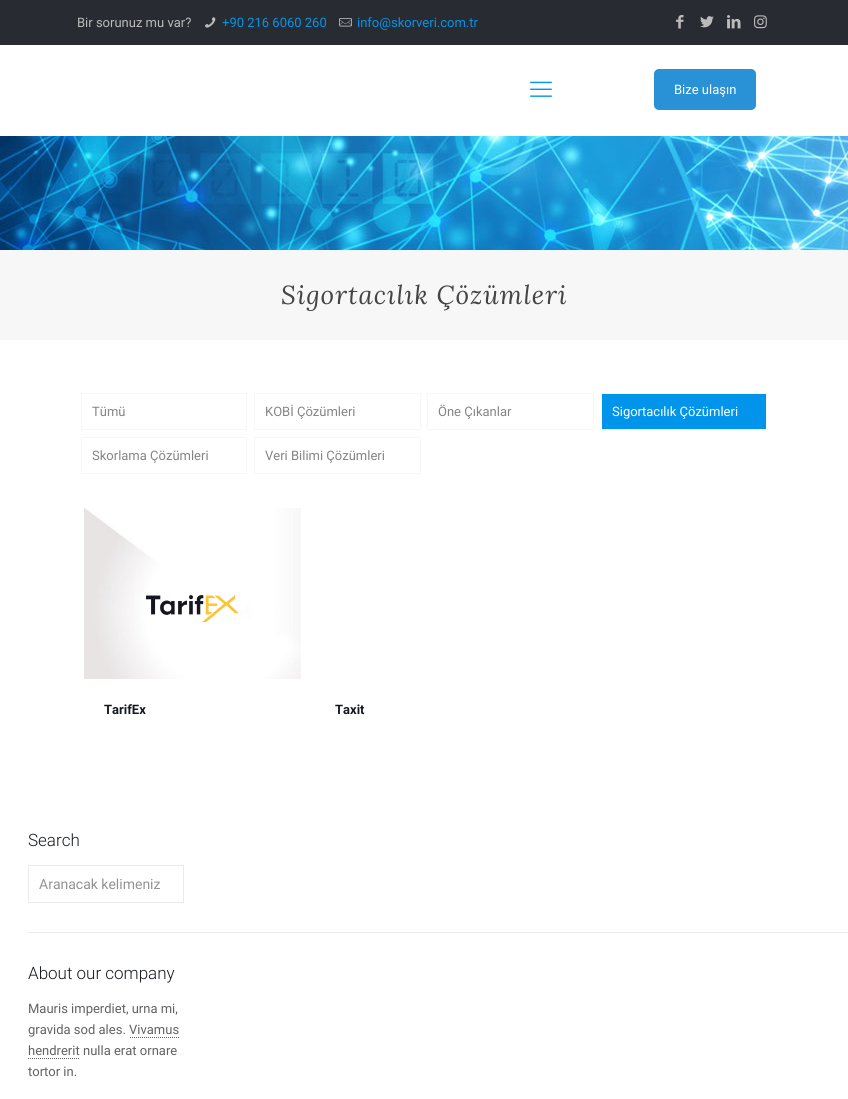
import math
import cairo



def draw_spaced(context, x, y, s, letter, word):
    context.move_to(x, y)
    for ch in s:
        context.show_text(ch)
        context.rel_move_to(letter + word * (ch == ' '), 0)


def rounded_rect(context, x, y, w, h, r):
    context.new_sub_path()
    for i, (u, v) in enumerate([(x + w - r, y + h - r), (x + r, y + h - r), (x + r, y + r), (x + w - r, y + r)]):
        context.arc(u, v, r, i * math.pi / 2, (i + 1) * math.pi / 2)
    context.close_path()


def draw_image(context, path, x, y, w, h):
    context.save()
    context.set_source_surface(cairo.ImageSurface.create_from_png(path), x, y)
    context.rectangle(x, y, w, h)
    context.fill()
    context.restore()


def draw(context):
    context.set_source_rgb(1, 1, 1)
    context.paint()
    draw_image(context, "images/1.png", 0, 136, 848, 114)
    context.set_source_rgb(41 / 255, 43 / 255, 51 / 255)
    context.rectangle(0, 0, 848, 45)
    context.fill()
    draw_image(context, "images/2.png", 205, 17, 11, 11)
    draw_image(context, "images/3.png", 339, 18, 13, 9)
    draw_image(context, "images/4.png", 676, 15, 8, 14)
    draw_image(context, "images/5.png", 700, 16, 14, 12)
    draw_image(context, "images/6.png", 727, 15, 14, 14)
    draw_image(context, "images/7.png", 754, 15, 13, 14)
    draw_image(context, "images/8.png", 530, 81, 22, 16)
    context.set_source_rgb(41 / 255, 145 / 255, 214 / 255)
    rounded_rect(context, 654, 69, 102, 41, 5)
    context.fill()
    context.set_source_rgb(247 / 255, 247 / 255, 247 / 255)
    context.rectangle(0, 250, 848, 90)
    context.fill()
    context.rectangle(81.5, 393.5, 165, 36)
    context.set_line_width(1)
    context.stroke()
    context.rectangle(254.5, 393.5, 166, 36)
    context.stroke()
    context.rectangle(427.5, 393.5, 166, 36)
    context.stroke()
    context.set_source_rgb(0, 149 / 255, 235 / 255)
    context.rectangle(601.5, 393.5, 165, 36)
    context.fill_preserve()
    context.set_source_rgb(247 / 255, 247 / 255, 247 / 255)
    context.stroke()
    context.rectangle(81.5, 437.5, 165, 36)
    context.stroke()
    context.rectangle(254.5, 437.5, 166, 36)
    context.stroke()
    draw_image(context, "images/9.png", 84, 508, 217, 171)
    context.rectangle(28.5, 865.5, 155, 37)
    context.set_source_rgb(235 / 255, 235 / 255, 235 / 255)
    context.stroke()
    context.set_source_rgb(233 / 255, 233 / 255, 233 / 255)
    context.rectangle(28, 932, 820, 1)
    context.fill()
    context.new_path()
    context.move_to(130, 1037.5)
    context.line_to(180, 1037.5)
    context.set_source_rgb(98 / 255, 98 / 255, 98 / 255)
    context.set_dash([1, 1])
    context.stroke()
    context.new_path()
    context.move_to(28, 1058.5)
    context.line_to(80, 1058.5)
    context.stroke()
    context.select_font_face("Roboto")
    context.set_font_size(13)
    context.set_source_rgb(187 / 255, 187 / 255, 187 / 255)
    context.move_to(77, 27)
    context.show_text("Bir sorunuz mu var?")
    context.set_source_rgb(0, 149 / 255, 235 / 255)
    context.move_to(222, 27)
    context.show_text("+90 216 6060 260")
    context.move_to(357, 27)
    context.show_text("info@skorveri.com.tr")
    context.set_source_rgb(1, 1, 1)
    context.move_to(674, 94)
    context.show_text("Bize ulaşın")
    context.select_font_face("Lora", cairo.FontSlant.ITALIC)
    context.set_font_size(26)
    context.set_source_rgb(68 / 255, 68 / 255, 68 / 255)
    draw_spaced(context, 281, 304, "Sigortacılık Çözümleri", 1, 0)
    context.select_font_face("Roboto")
    context.set_font_size(13)
    context.set_source_rgb(133 / 255, 133 / 255, 133 / 255)
    context.move_to(92, 416)
    context.show_text("Tümü")
    context.move_to(265, 416)
    context.show_text("KOBİ Çözümleri")
    context.move_to(438, 416)
    context.show_text("Öne Çıkanlar")
    context.set_source_rgb(1, 1, 1)
    context.move_to(612, 416)
    context.show_text("Sigortacılık Çözümleri")
    context.set_source_rgb(133 / 255, 133 / 255, 133 / 255)
    context.move_to(92, 460)
    context.show_text("Skorlama Çözümleri")
    context.move_to(265, 460)
    context.show_text("Veri Bilimi Çözümleri")
    context.select_font_face("Roboto", cairo.FontSlant.NORMAL, cairo.FontWeight.BOLD)
    context.set_source_rgb(22 / 255, 25 / 255, 34 / 255)
    context.move_to(104, 714)
    context.show_text("TarifEx")
    context.move_to(335, 714)
    context.show_text("Taxit")
    context.select_font_face("Roboto Light")
    context.set_font_size(17)
    context.move_to(28, 846)
    context.show_text("Search")
    context.select_font_face("Roboto")
    context.set_font_size(14)
    context.set_source_rgb(146 / 255, 146 / 255, 146 / 255)
    context.move_to(39, 889)
    context.show_text("Aranacak kelimeniz")
    context.select_font_face("Roboto Light")
    context.set_font_size(17)
    context.set_source_rgb(22 / 255, 25 / 255, 34 / 255)
    context.move_to(28, 979)
    context.show_text("About our company")
    context.select_font_face("Roboto")
    context.set_font_size(13)
    context.set_source_rgb(98 / 255, 98 / 255, 98 / 255)
    context.move_to(28, 1013)
    context.show_text("Mauris imperdiet, urna mi,")
    context.move_to(28, 1034)
    context.show_text("gravida sod ales. Vivamus")
    context.move_to(28, 1055)
    context.show_text("hendrerit")
    context.move_to(83, 1055)
    context.show_text("nulla erat ornare")
    context.move_to(28, 1076)
    context.show_text("tortor in.")


surface = cairo.ImageSurface(cairo.Format.RGB24, 848, 1099)
context = cairo.Context(surface)
options = cairo.FontOptions()
options.set_hint_metrics(cairo.HintMetrics.OFF)
options.set_hint_style(cairo.HintStyle.NONE)
context.set_font_options(options)
context.set_miter_limit(4)
draw(context)
surface.write_to_png("out.png")
